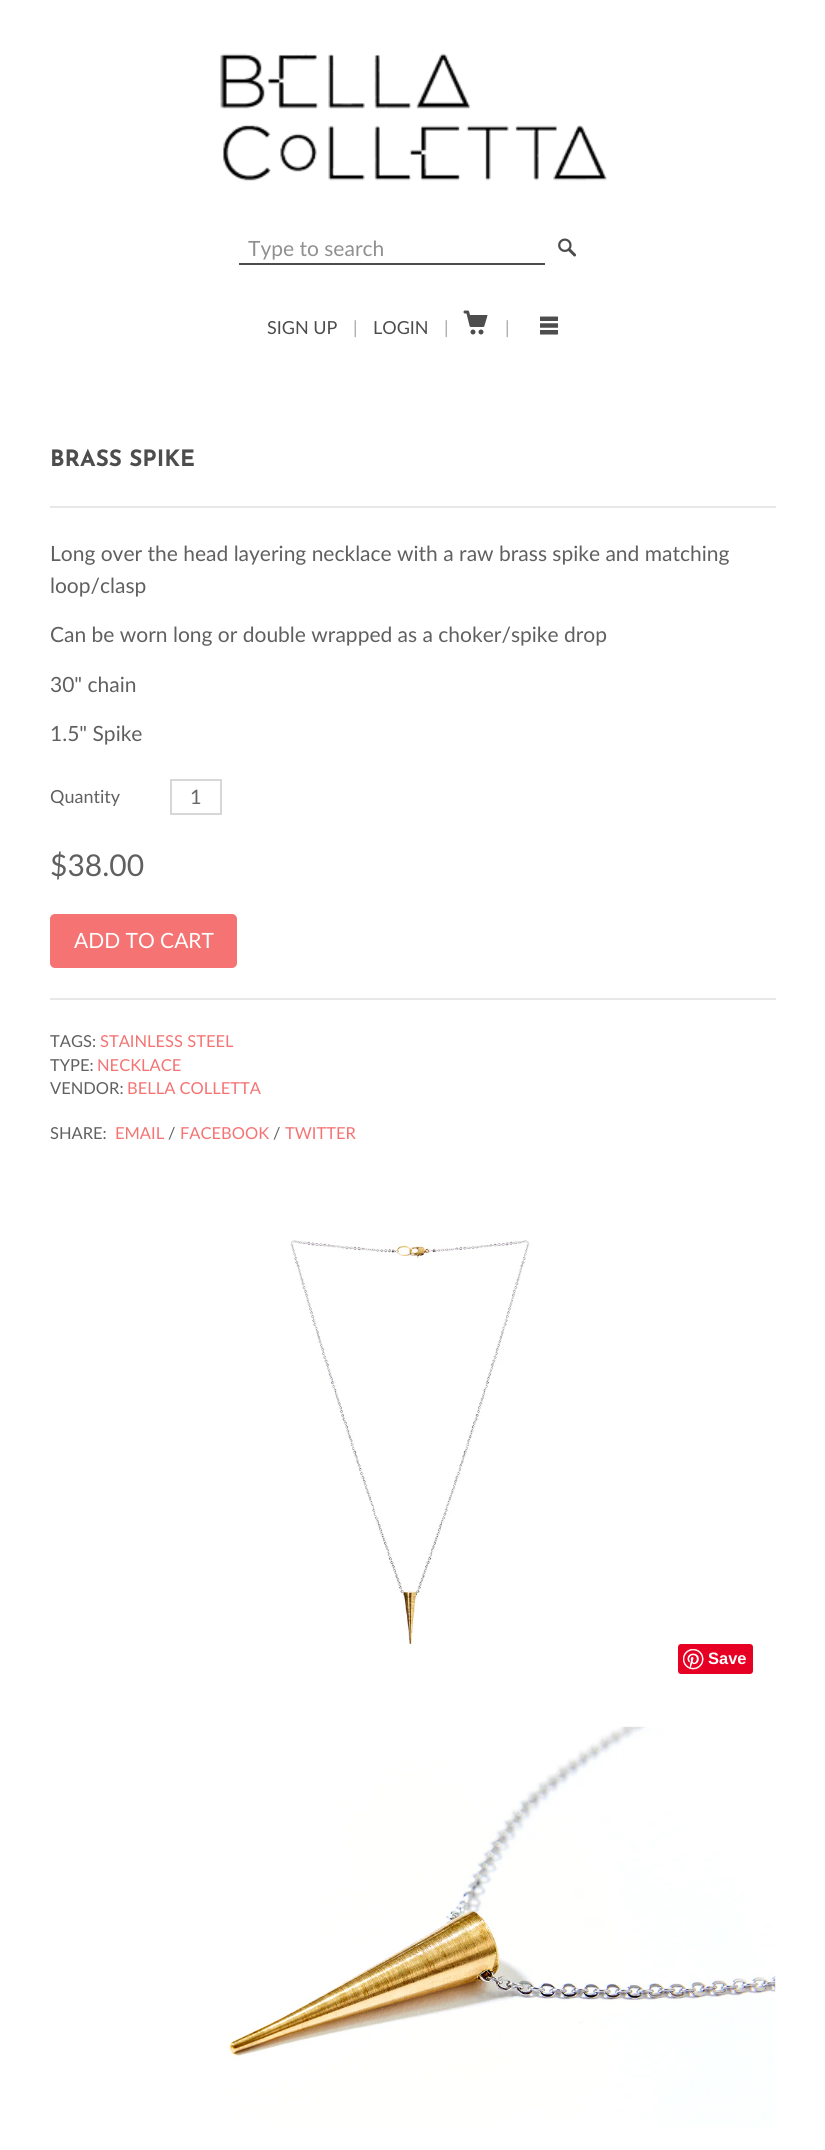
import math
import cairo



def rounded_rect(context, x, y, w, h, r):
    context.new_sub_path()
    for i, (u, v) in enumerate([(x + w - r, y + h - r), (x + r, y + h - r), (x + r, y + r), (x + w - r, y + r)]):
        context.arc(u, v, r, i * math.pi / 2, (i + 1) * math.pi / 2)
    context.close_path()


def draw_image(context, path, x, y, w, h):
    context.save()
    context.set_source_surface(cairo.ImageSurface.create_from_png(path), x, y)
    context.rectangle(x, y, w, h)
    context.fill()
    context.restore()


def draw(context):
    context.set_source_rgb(1, 1, 1)
    context.paint()
    draw_image(context, "images/1.png", 220, 53, 387, 128)
    context.set_source_rgb(77 / 255, 77 / 255, 77 / 255)
    context.rectangle(239, 263, 306, 2)
    context.fill()
    draw_image(context, "images/2.png", 558, 238, 19, 19)
    draw_image(context, "images/3.png", 463, 310, 25, 25)
    draw_image(context, "images/4.png", 540, 316, 18, 19)
    context.set_source_rgb(232 / 255, 232 / 255, 232 / 255)
    context.rectangle(50, 506, 726, 2)
    context.fill()
    context.rectangle(171, 780, 50, 34)
    context.set_source_rgb(215 / 255, 215 / 255, 215 / 255)
    context.stroke()
    context.set_source_rgb(245 / 255, 115 / 255, 115 / 255)
    rounded_rect(context, 50, 914, 187, 54, 5)
    context.fill()
    context.set_source_rgb(232 / 255, 232 / 255, 232 / 255)
    context.rectangle(50, 998, 726, 2)
    context.fill()
    draw_image(context, "images/5.png", 290, 1240, 240, 406)
    context.set_source_rgb(230 / 255, 0, 35 / 255)
    rounded_rect(context, 678, 1644, 75, 30, 3)
    context.fill()
    draw_image(context, "images/6.png", 683, 1649, 21, 21)
    draw_image(context, "images/7.png", 229, 1726, 547, 401)
    context.select_font_face("Lato")
    context.set_font_size(21)
    context.set_source_rgb(144 / 255, 144 / 255, 144 / 255)
    context.move_to(248, 256)
    context.show_text("Type to search")
    context.set_font_size(18)
    context.set_source_rgb(77 / 255, 77 / 255, 77 / 255)
    context.move_to(267, 334)
    context.show_text("SIGN UP")
    context.set_source_rgb(166 / 255, 166 / 255, 166 / 255)
    context.move_to(353, 334)
    context.show_text("|")
    context.set_source_rgb(77 / 255, 77 / 255, 77 / 255)
    context.move_to(373, 334)
    context.show_text("LOGIN")
    context.set_source_rgb(166 / 255, 166 / 255, 166 / 255)
    context.move_to(444, 334)
    context.show_text("|")
    context.move_to(505, 334)
    context.show_text("|")
    context.select_font_face("Josefin Sans", cairo.FontSlant.NORMAL, cairo.FontWeight.BOLD)
    context.set_font_size(22.5)
    context.set_source_rgb(77 / 255, 77 / 255, 77 / 255)
    context.move_to(50, 466)
    context.show_text("BRASS SPIKE")
    context.select_font_face("Lato")
    context.set_font_size(21)
    context.set_source_rgb(96 / 255, 96 / 255, 96 / 255)
    context.move_to(50, 561)
    context.show_text("Long over the head layering necklace with a raw brass spike and matching")
    context.move_to(50, 593)
    context.show_text("loop/clasp")
    context.move_to(50, 642)
    context.show_text("Can be worn long or double wrapped as a choker/spike drop")
    context.move_to(50, 692)
    context.show_text("30\" chain")
    context.move_to(50, 741)
    context.show_text("1.5\" Spike")
    context.set_font_size(18)
    context.move_to(50, 803)
    context.show_text("Quantity")
    context.set_font_size(20)
    context.set_source_rgb(102 / 255, 102 / 255, 102 / 255)
    context.move_to(190, 804)
    context.show_text("1")
    context.set_font_size(30)
    context.set_source_rgb(96 / 255, 96 / 255, 96 / 255)
    context.move_to(50, 876)
    context.show_text("$38.00")
    context.set_font_size(21)
    context.set_source_rgb(1, 1, 1)
    context.move_to(74, 948)
    context.show_text("ADD TO CART")
    context.set_font_size(16.5)
    context.set_source_rgb(96 / 255, 96 / 255, 96 / 255)
    context.move_to(50, 1047)
    context.show_text("TAGS:")
    context.set_source_rgb(245 / 255, 115 / 255, 115 / 255)
    context.move_to(100, 1047)
    context.show_text("STAINLESS STEEL")
    context.set_source_rgb(96 / 255, 96 / 255, 96 / 255)
    context.move_to(50, 1071)
    context.show_text("TYPE:")
    context.set_source_rgb(245 / 255, 115 / 255, 115 / 255)
    context.move_to(97, 1071)
    context.show_text("NECKLACE")
    context.set_source_rgb(96 / 255, 96 / 255, 96 / 255)
    context.move_to(50, 1094)
    context.show_text("VENDOR:")
    context.set_source_rgb(245 / 255, 115 / 255, 115 / 255)
    context.move_to(127, 1094)
    context.show_text("BELLA COLLETTA")
    context.set_source_rgb(96 / 255, 96 / 255, 96 / 255)
    context.move_to(50, 1139)
    context.show_text("SHARE:")
    context.set_source_rgb(245 / 255, 115 / 255, 115 / 255)
    context.move_to(115, 1139)
    context.show_text("EMAIL")
    context.set_source_rgb(96 / 255, 96 / 255, 96 / 255)
    context.move_to(168, 1139)
    context.show_text("/")
    context.set_source_rgb(245 / 255, 115 / 255, 115 / 255)
    context.move_to(180, 1139)
    context.show_text("FACEBOOK")
    context.set_source_rgb(96 / 255, 96 / 255, 96 / 255)
    context.move_to(273, 1139)
    context.show_text("/")
    context.set_source_rgb(245 / 255, 115 / 255, 115 / 255)
    context.move_to(285, 1139)
    context.show_text("TWITTER")
    context.select_font_face("Liberation Sans", cairo.FontSlant.NORMAL, cairo.FontWeight.BOLD)
    context.set_source_rgb(1, 1, 1)
    context.move_to(708, 1664)
    context.show_text("Save")


surface = cairo.ImageSurface(cairo.Format.RGB24, 825, 2150)
context = cairo.Context(surface)
options = cairo.FontOptions()
options.set_hint_metrics(cairo.HintMetrics.OFF)
options.set_hint_style(cairo.HintStyle.NONE)
context.set_font_options(options)
context.set_miter_limit(4)
draw(context)
surface.write_to_png("out.png")
